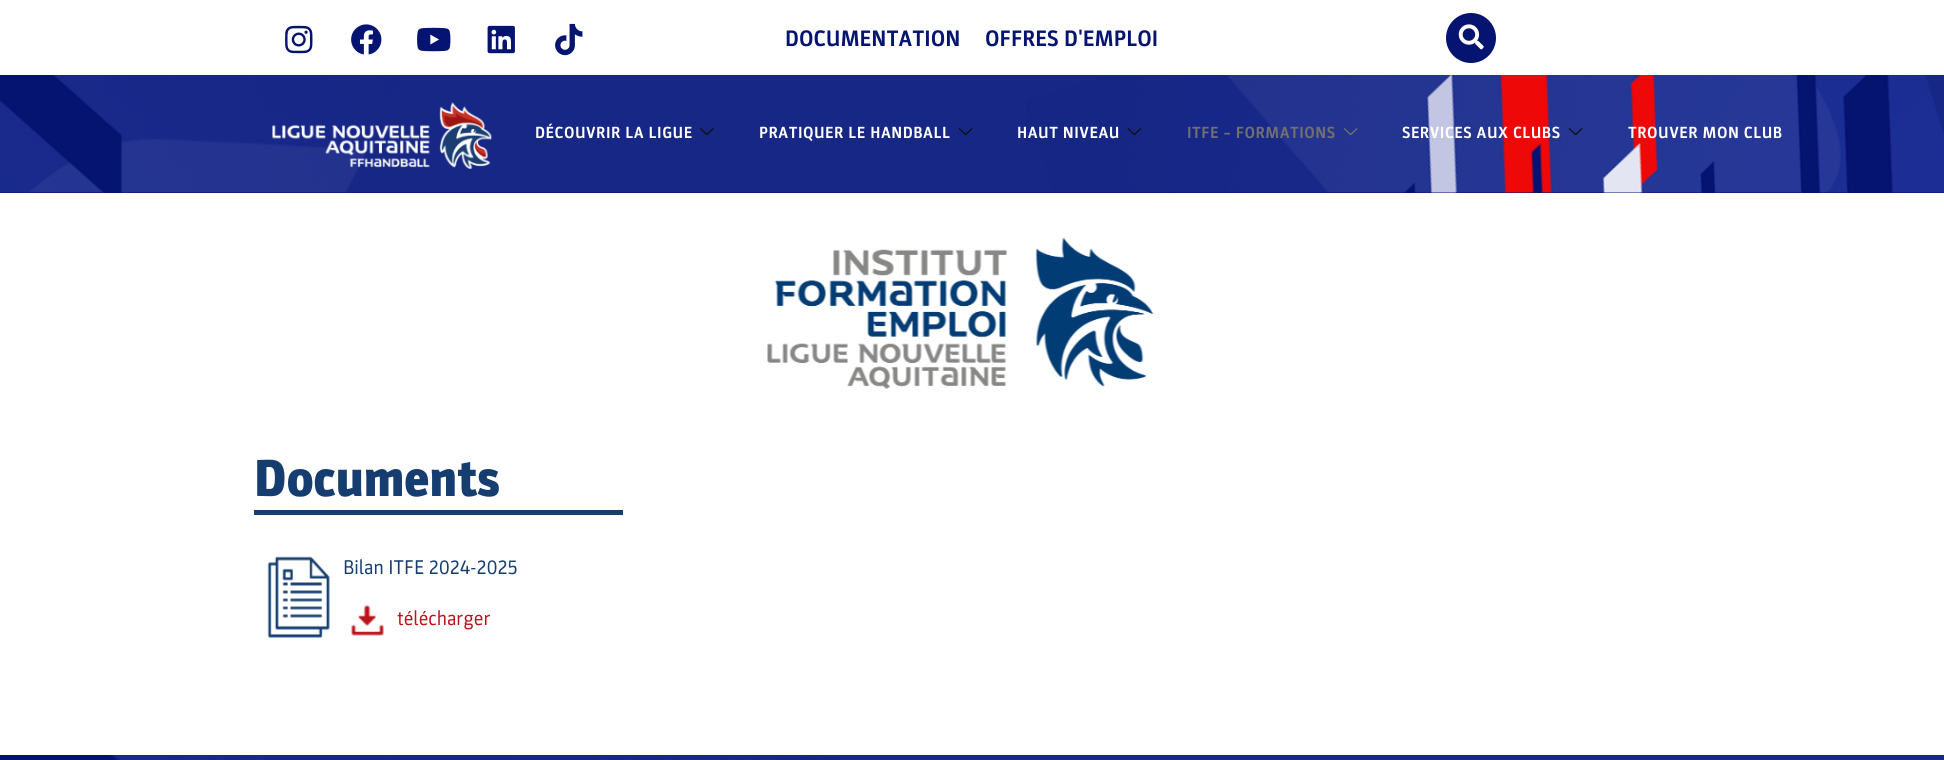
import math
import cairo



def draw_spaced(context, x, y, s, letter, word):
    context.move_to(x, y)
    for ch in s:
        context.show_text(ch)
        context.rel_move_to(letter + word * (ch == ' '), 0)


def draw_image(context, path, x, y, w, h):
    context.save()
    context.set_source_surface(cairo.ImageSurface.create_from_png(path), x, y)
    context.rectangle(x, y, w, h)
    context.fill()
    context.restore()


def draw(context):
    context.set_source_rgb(1, 1, 1)
    context.paint()
    draw_image(context, "images/1.png", 285, 25, 28, 29)
    draw_image(context, "images/2.png", 351, 24, 31, 31)
    draw_image(context, "images/3.png", 417, 27, 34, 25)
    draw_image(context, "images/4.png", 487, 25, 28, 29)
    draw_image(context, "images/5.png", 555, 23, 28, 33)
    context.set_source_rgb(5 / 255, 19 / 255, 113 / 255)
    context.arc(1471, 38, 25, 0, 2 * math.pi)
    context.fill()
    draw_image(context, "images/6.png", 1458, 24, 26, 26)
    context.rectangle(0, 192, 1944, 1)
    context.fill()
    draw_image(context, "images/7.png", 0, 75, 1944, 118)
    draw_image(context, "images/8.png", 272, 102, 220, 67)
    draw_image(context, "images/9.png", 700, 128, 14, 8)
    draw_image(context, "images/10.png", 958, 128, 15, 8)
    draw_image(context, "images/11.png", 1127, 128, 15, 8)
    draw_image(context, "images/12.png", 1343, 128, 15, 8)
    draw_image(context, "images/13.png", 1568, 128, 15, 8)
    draw_image(context, "images/14.png", 767, 237, 387, 153)
    context.set_source_rgb(21 / 255, 61 / 255, 112 / 255)
    context.rectangle(254, 510, 369, 5)
    context.fill()
    draw_image(context, "images/15.png", 267, 556, 63, 82)
    draw_image(context, "images/16.png", 351, 604, 33, 32)
    draw_image(context, "images/17.png", 0, 755, 1944, 5)
    context.select_font_face("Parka", cairo.FontSlant.NORMAL, cairo.FontWeight.BOLD)
    context.set_font_size(22.5)
    context.set_source_rgb(5 / 255, 19 / 255, 113 / 255)
    context.move_to(785, 46)
    context.show_text("DOCUMENTATION")
    context.move_to(985, 46)
    context.show_text("OFFRES D'EMPLOI")
    context.set_font_size(16.25)
    context.set_source_rgb(1, 1, 1)
    draw_spaced(context, 535, 138, "DÉCOUVRIR LA LIGUE", 0.5, 0)
    draw_spaced(context, 759, 138, "PRATIQUER LE HANDBALL", 0.5, 0)
    draw_spaced(context, 1017, 138, "HAUT NIVEAU", 0.5, 0)
    context.set_source_rgb(112 / 255, 112 / 255, 112 / 255)
    draw_spaced(context, 1187, 138, "ITFE – FORMATIONS", 0.5, 0)
    context.set_source_rgb(1, 1, 1)
    draw_spaced(context, 1402, 138, "SERVICES AUX CLUBS", 0.5, 0)
    draw_spaced(context, 1628, 138, "TROUVER MON CLUB", 0.5, 0)
    context.select_font_face("Parka Black")
    context.set_font_size(52.5)
    context.set_source_rgb(21 / 255, 61 / 255, 112 / 255)
    context.move_to(254, 496)
    context.show_text("Documents")
    context.select_font_face("Parka")
    context.set_font_size(20)
    context.move_to(343, 574)
    context.show_text("Bilan ITFE 2024-2025")
    context.set_source_rgb(186 / 255, 19 / 255, 26 / 255)
    context.move_to(397, 625)
    context.show_text("télécharger")


surface = cairo.ImageSurface(cairo.Format.RGB24, 1944, 760)
context = cairo.Context(surface)
options = cairo.FontOptions()
options.set_hint_metrics(cairo.HintMetrics.OFF)
options.set_hint_style(cairo.HintStyle.NONE)
context.set_font_options(options)
context.set_miter_limit(4)
draw(context)
surface.write_to_png("out.png")
